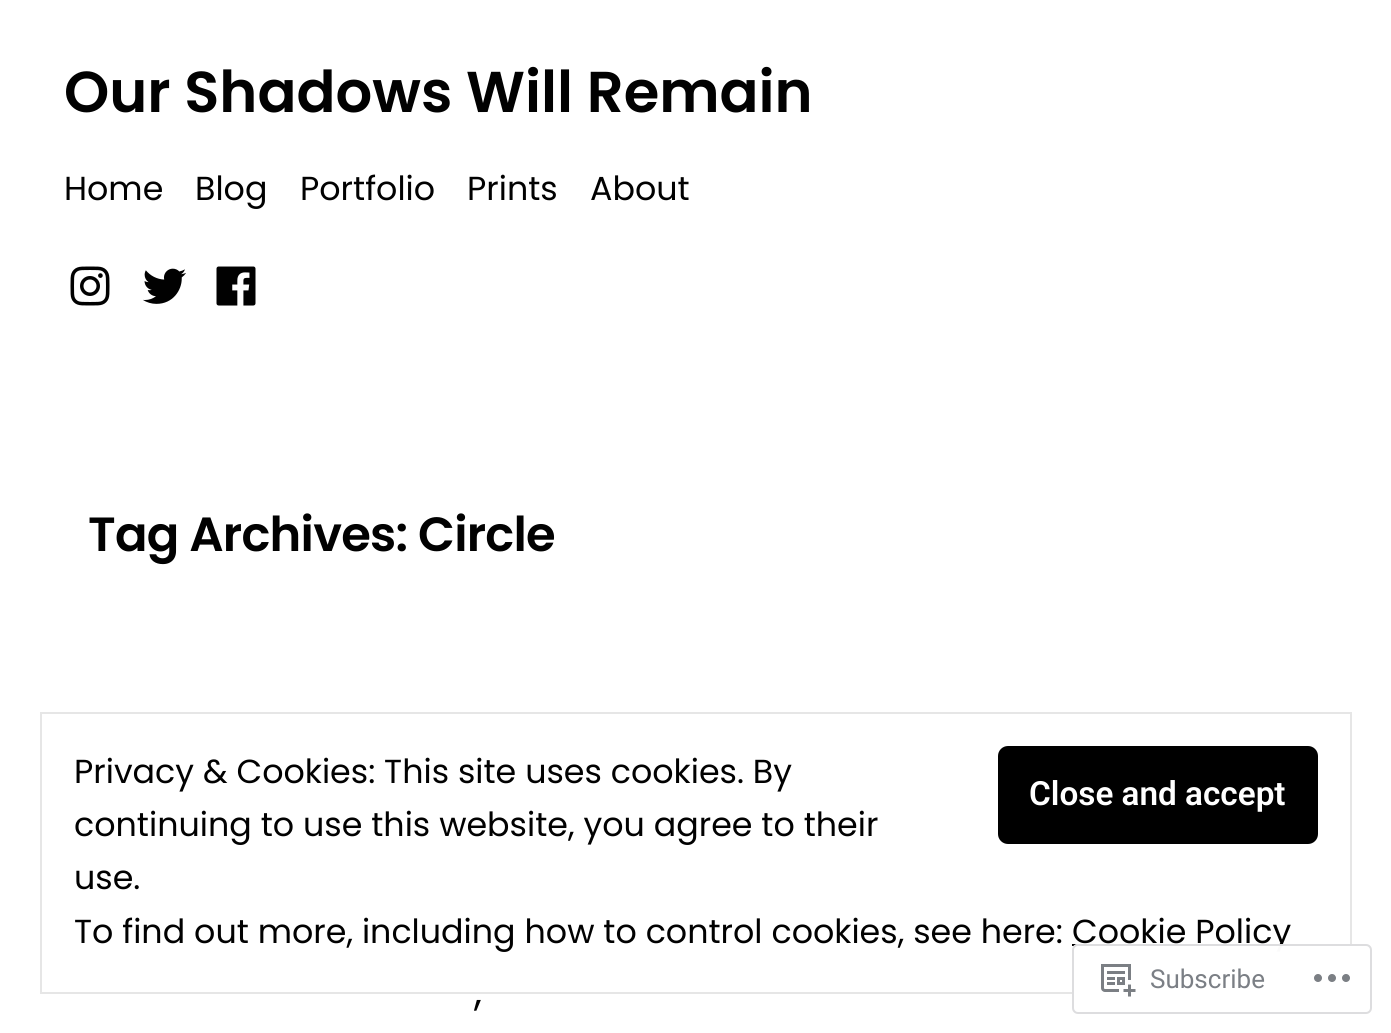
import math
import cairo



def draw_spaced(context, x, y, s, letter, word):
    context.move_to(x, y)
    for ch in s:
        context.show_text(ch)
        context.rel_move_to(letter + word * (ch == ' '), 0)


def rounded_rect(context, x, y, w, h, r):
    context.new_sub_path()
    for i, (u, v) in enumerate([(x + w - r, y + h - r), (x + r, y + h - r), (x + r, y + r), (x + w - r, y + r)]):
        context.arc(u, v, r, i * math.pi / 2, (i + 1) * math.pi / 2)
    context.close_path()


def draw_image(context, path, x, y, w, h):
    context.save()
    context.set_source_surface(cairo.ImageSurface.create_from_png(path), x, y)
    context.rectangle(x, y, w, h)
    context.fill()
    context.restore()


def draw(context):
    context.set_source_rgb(1, 1, 1)
    context.paint()
    draw_image(context, "images/1.png", 70, 266, 40, 40)
    draw_image(context, "images/2.png", 143, 268, 43, 36)
    draw_image(context, "images/3.png", 216, 266, 40, 40)
    context.rectangle(41, 713, 1310, 280)
    context.set_source_rgb(230 / 255, 230 / 255, 230 / 255)
    context.stroke()
    context.set_source_rgb(0, 0, 0)
    rounded_rect(context, 998, 746, 320, 98, 10)
    context.fill()
    context.set_source_rgb(1 / 255, 1 / 255, 1 / 255)
    context.rectangle(1072, 944, 220, 2)
    context.fill()
    context.select_font_face("Poppins SemiBold")
    context.set_font_size(57.6)
    context.move_to(64, 112)
    context.show_text("Our Shadows Will Remain")
    context.select_font_face("Poppins")
    context.set_font_size(33.3)
    context.move_to(64, 200)
    context.show_text("Home")
    context.move_to(195, 200)
    context.show_text("Blog")
    context.move_to(300, 200)
    context.show_text("Portfolio")
    context.move_to(467, 200)
    context.show_text("Prints")
    context.move_to(590, 200)
    context.show_text("About")
    context.select_font_face("Poppins SemiBold")
    context.set_font_size(48)
    draw_spaced(context, 88, 551, "Tag Archives: Circle", -0.75, 0)
    context.select_font_face("Poppins")
    context.set_font_size(40)
    context.move_to(474, 1005)
    context.show_text(",")
    context.set_font_size(33.3)
    context.move_to(74, 783)
    context.show_text("Privacy & Cookies: This site uses cookies. By")
    context.select_font_face("Roboto SemiBold")
    context.set_source_rgb(1, 1, 1)
    context.move_to(1029, 805)
    context.show_text("Close and accept")
    context.select_font_face("Poppins")
    context.set_source_rgb(1 / 255, 1 / 255, 1 / 255)
    context.move_to(74, 836)
    context.show_text("continuing to use this website, you agree to their")
    context.move_to(74, 889)
    context.show_text("use.")
    context.move_to(74, 943)
    context.show_text("To find out more, including how to control cookies, see here:")
    context.move_to(1072, 943)
    context.show_text("Cookie Policy")
    context.set_source_rgba(1, 1, 1, 0.98)
    rounded_rect(context, 1072, 944, 300, 70, 6)
    context.fill()
    rounded_rect(context, 1073, 945, 298, 68, 5)
    context.set_source_rgba(220 / 255, 220 / 255, 222 / 255, 0.98)
    context.stroke()
    draw_image(context, "images/4.png", 1101, 964, 35, 33)
    context.select_font_face("Roboto")
    context.set_font_size(26)
    context.set_source_rgb(123 / 255, 127 / 255, 133 / 255)
    context.move_to(1150, 988)
    context.show_text("Subscribe")
    draw_image(context, "images/5.png", 1314, 974, 36, 8)


surface = cairo.ImageSurface(cairo.Format.RGB24, 1391, 1033)
context = cairo.Context(surface)
options = cairo.FontOptions()
options.set_hint_metrics(cairo.HintMetrics.OFF)
options.set_hint_style(cairo.HintStyle.NONE)
context.set_font_options(options)
context.set_miter_limit(4)
draw(context)
surface.write_to_png("out.png")
